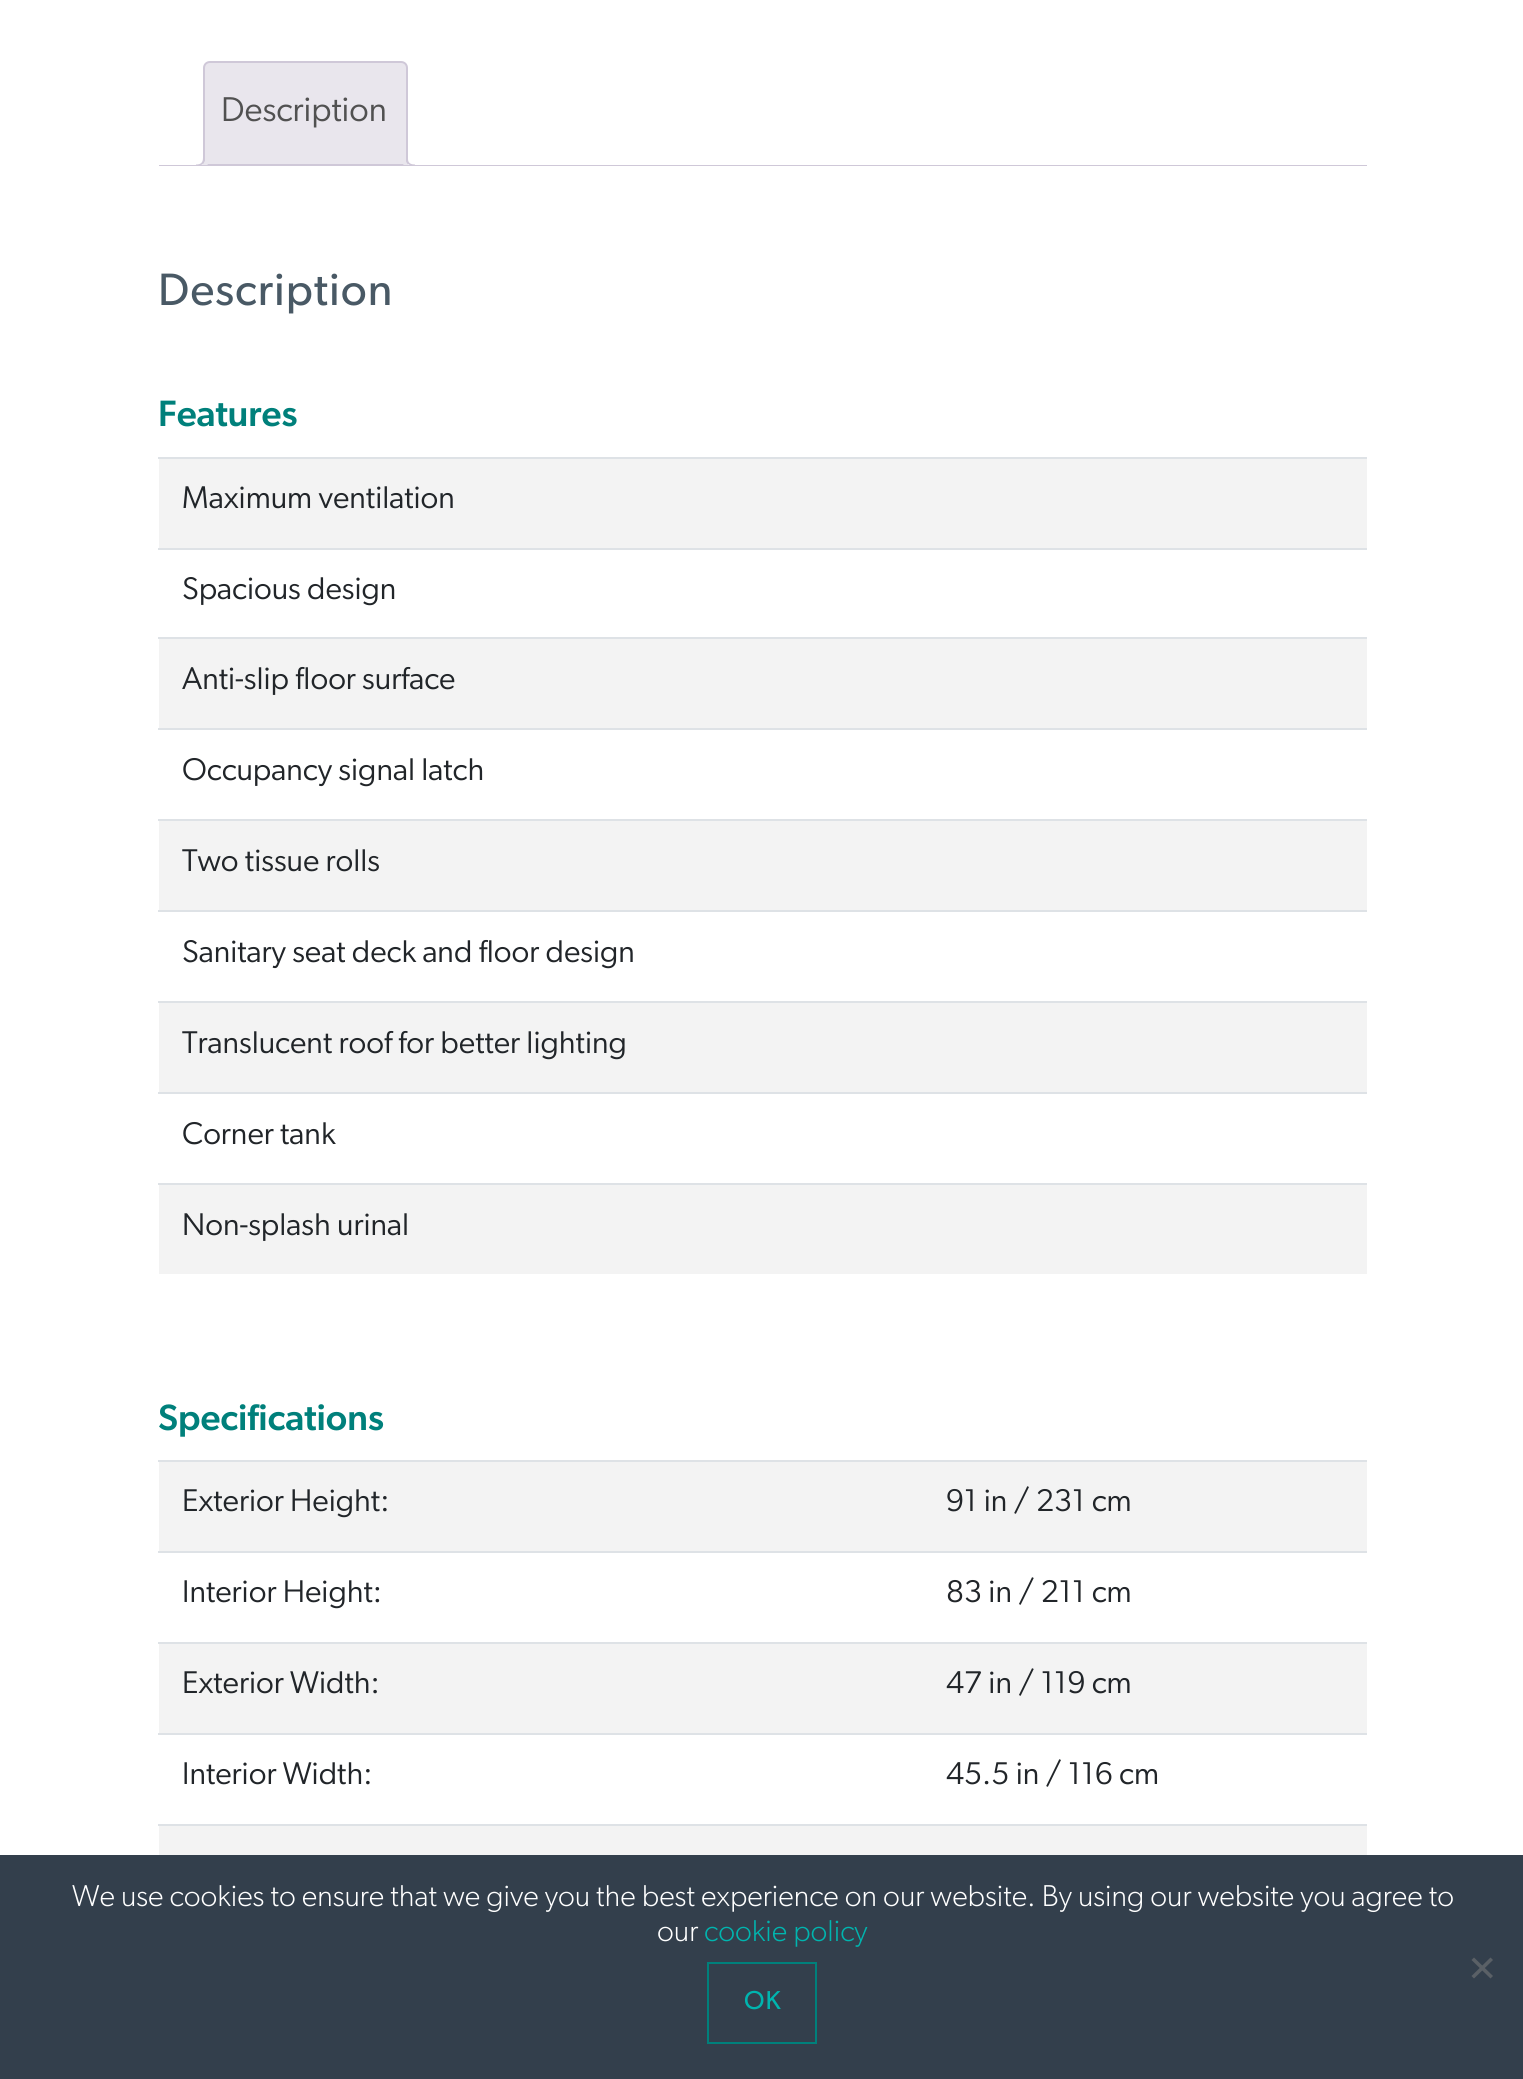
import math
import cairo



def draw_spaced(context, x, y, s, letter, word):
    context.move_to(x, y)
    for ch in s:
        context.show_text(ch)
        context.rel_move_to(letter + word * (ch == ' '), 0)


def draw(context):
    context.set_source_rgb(1, 1, 1)
    context.paint()
    context.set_source_rgb(233 / 255, 230 / 255, 237 / 255)
    context.new_path()
    context.move_to(210, 62)
    context.line_to(401, 62)
    context.curve_to(404.5, 62, 407, 64.5, 407, 68)
    context.line_to(407, 165)
    context.line_to(204, 165)
    context.line_to(204, 68)
    context.curve_to(204, 64.5, 206.5, 62, 210, 62)
    context.close_path()
    context.fill_preserve()
    context.set_source_rgb(207 / 255, 200 / 255, 216 / 255)
    context.stroke()
    context.save()
    context.rectangle(159, 53, 1208, 113)
    context.clip()
    context.set_source_rgb(233 / 255, 230 / 255, 237 / 255)
    context.new_path()
    context.move_to(200, 166)
    context.line_to(200, 170)
    context.curve_to(206, 170, 208, 166.5, 208, 161)
    context.line_to(204.5, 161)
    context.curve_to(204, 163.5, 202, 165, 200, 166)
    context.close_path()
    context.fill()
    context.restore()
    context.set_fill_rule(cairo.FillRule.EVEN_ODD)
    context.new_path()
    context.move_to(196, 157.5)
    context.line_to(205, 157.5)
    context.curve_to(205, 163.5, 202, 166, 196, 166)
    context.close_path()
    context.move_to(196, 157.5)
    context.line_to(203, 157.5)
    context.curve_to(203, 162.5, 201, 164.5, 196, 164.5)
    context.close_path()
    context.fill()
    context.save()
    context.set_fill_rule(cairo.FillRule.WINDING)
    context.rectangle(159, 53, 1208, 113)
    context.clip()
    context.set_source_rgb(233 / 255, 230 / 255, 237 / 255)
    context.new_path()
    context.move_to(403, 161)
    context.curve_to(403, 166.5, 405, 170, 411, 170)
    context.line_to(411, 166)
    context.curve_to(408.5, 165.5, 407, 163.5, 406, 161)
    context.close_path()
    context.fill()
    context.restore()
    context.new_path()
    context.move_to(406, 157.5)
    context.line_to(415, 157.5)
    context.line_to(415, 166)
    context.curve_to(410.5, 166, 406, 164.5, 406, 159)
    context.close_path()
    context.move_to(408, 157.5)
    context.line_to(415, 157.5)
    context.line_to(415, 164.5)
    context.curve_to(411.5, 164.5, 408, 163.5, 408, 159)
    context.close_path()
    context.fill()
    context.rectangle(159, 165, 1208, 1)
    context.fill()
    context.set_source_rgb(243 / 255, 243 / 255, 243 / 255)
    context.rectangle(159, 459, 1208, 89)
    context.fill()
    context.set_source_rgb(222 / 255, 226 / 255, 230 / 255)
    context.rectangle(158, 457, 1209, 2)
    context.fill()
    context.rectangle(158, 548, 1209, 2)
    context.fill()
    context.set_source_rgb(243 / 255, 243 / 255, 243 / 255)
    context.rectangle(159, 639, 1208, 89)
    context.fill()
    context.set_source_rgb(222 / 255, 226 / 255, 230 / 255)
    context.rectangle(158, 637, 1209, 2)
    context.fill()
    context.rectangle(158, 728, 1209, 2)
    context.fill()
    context.set_source_rgb(243 / 255, 243 / 255, 243 / 255)
    context.rectangle(159, 821, 1208, 89)
    context.fill()
    context.set_source_rgb(222 / 255, 226 / 255, 230 / 255)
    context.rectangle(158, 819, 1209, 2)
    context.fill()
    context.rectangle(158, 910, 1209, 2)
    context.fill()
    context.set_source_rgb(243 / 255, 243 / 255, 243 / 255)
    context.rectangle(159, 1003, 1208, 89)
    context.fill()
    context.set_source_rgb(222 / 255, 226 / 255, 230 / 255)
    context.rectangle(158, 1001, 1209, 2)
    context.fill()
    context.rectangle(158, 1092, 1209, 2)
    context.fill()
    context.set_source_rgb(243 / 255, 243 / 255, 243 / 255)
    context.rectangle(159, 1185, 1208, 89)
    context.fill()
    context.set_source_rgb(222 / 255, 226 / 255, 230 / 255)
    context.rectangle(158, 1183, 1209, 2)
    context.fill()
    context.set_source_rgb(243 / 255, 243 / 255, 243 / 255)
    context.rectangle(159, 1462, 1208, 89)
    context.fill()
    context.set_source_rgb(222 / 255, 226 / 255, 230 / 255)
    context.rectangle(158, 1460, 1209, 2)
    context.fill()
    context.rectangle(158, 1551, 1209, 2)
    context.fill()
    context.set_source_rgb(243 / 255, 243 / 255, 243 / 255)
    context.rectangle(159, 1644, 1208, 89)
    context.fill()
    context.set_source_rgb(222 / 255, 226 / 255, 230 / 255)
    context.rectangle(158, 1642, 1209, 2)
    context.fill()
    context.rectangle(158, 1733, 1209, 2)
    context.fill()
    context.set_source_rgb(243 / 255, 243 / 255, 243 / 255)
    context.rectangle(159, 1826, 1208, 29)
    context.fill()
    context.set_source_rgb(222 / 255, 226 / 255, 230 / 255)
    context.rectangle(158, 1824, 1209, 2)
    context.fill()
    context.set_source_rgb(51 / 255, 63 / 255, 76 / 255)
    context.rectangle(0, 1855, 1523, 224)
    context.fill()
    context.set_source_rgb(90 / 255, 96 / 255, 102 / 255)
    context.set_fill_rule(cairo.FillRule.WINDING)
    context.new_path()
    context.move_to(1490.5, 1957.5)
    context.line_to(1493, 1960)
    context.line_to(1474, 1978.5)
    context.line_to(1471.5, 1976)
    context.close_path()
    context.fill()
    context.new_path()
    context.move_to(1471.5, 1960)
    context.line_to(1474, 1957.5)
    context.line_to(1493, 1976)
    context.line_to(1490.5, 1978.5)
    context.close_path()
    context.fill()
    context.rectangle(708, 1963, 108, 80)
    context.set_source_rgb(0, 128 / 255, 123 / 255)
    context.stroke()
    context.select_font_face("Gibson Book")
    context.set_font_size(34.5)
    context.set_source_rgb(81 / 255, 81 / 255, 81 / 255)
    context.move_to(221, 121)
    context.show_text("Description")
    context.select_font_face("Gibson")
    context.set_font_size(45.5)
    context.set_source_rgb(73 / 255, 89 / 255, 101 / 255)
    draw_spaced(context, 158, 305, "Description", 1, 0)
    context.select_font_face("Gibson Medium")
    context.set_font_size(36.75)
    context.set_source_rgb(0, 128 / 255, 123 / 255)
    context.move_to(158, 426)
    context.show_text("Features")
    context.select_font_face("Gibson Book")
    context.set_font_size(31.5)
    context.set_source_rgb(33 / 255, 37 / 255, 41 / 255)
    context.move_to(182, 508)
    context.show_text("Maximum ventilation")
    context.move_to(182, 599)
    context.show_text("Spacious design")
    context.move_to(182, 689)
    context.show_text("Anti-slip floor surface")
    context.move_to(182, 780)
    context.show_text("Occupancy signal latch")
    context.move_to(182, 871)
    context.show_text("Two tissue rolls")
    context.move_to(182, 962)
    context.show_text("Sanitary seat deck and floor design")
    context.move_to(182, 1053)
    context.show_text("Translucent roof for better lighting")
    context.move_to(182, 1144)
    context.show_text("Corner tank")
    context.move_to(182, 1235)
    context.show_text("Non-splash urinal")
    context.select_font_face("Gibson Medium")
    context.set_font_size(36.75)
    context.set_source_rgb(0, 128 / 255, 123 / 255)
    context.move_to(158, 1430)
    context.show_text("Specifications")
    context.select_font_face("Gibson Book")
    context.set_font_size(31.5)
    context.set_source_rgb(33 / 255, 37 / 255, 41 / 255)
    context.move_to(182, 1511)
    context.show_text("Exterior Height:")
    context.move_to(946, 1511)
    context.show_text("91 in / 231 cm")
    context.move_to(182, 1602)
    context.show_text("Interior Height:")
    context.move_to(946, 1602)
    context.show_text("83 in / 211 cm")
    context.move_to(182, 1693)
    context.show_text("Exterior Width:")
    context.move_to(946, 1693)
    context.show_text("47 in / 119 cm")
    context.move_to(182, 1784)
    context.show_text("Interior Width:")
    context.move_to(946, 1784)
    context.show_text("45.5 in / 116 cm")
    context.select_font_face("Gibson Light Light")
    context.set_font_size(30.25)
    context.set_source_rgb(1, 1, 1)
    context.move_to(72, 1906)
    context.show_text("We use cookies to ensure that we give you the best experience on our website. By using our website you agree to")
    context.move_to(657, 1941)
    context.show_text("our")
    context.set_source_rgb(0, 181 / 255, 175 / 255)
    context.move_to(704, 1941)
    context.show_text("cookie policy")
    context.select_font_face("Gibson")
    context.set_font_size(26)
    draw_spaced(context, 744, 2009, "OK", 1, 0)


surface = cairo.ImageSurface(cairo.Format.RGB24, 1523, 2079)
context = cairo.Context(surface)
options = cairo.FontOptions()
options.set_hint_metrics(cairo.HintMetrics.OFF)
options.set_hint_style(cairo.HintStyle.NONE)
context.set_font_options(options)
context.set_miter_limit(4)
draw(context)
surface.write_to_png("out.png")
